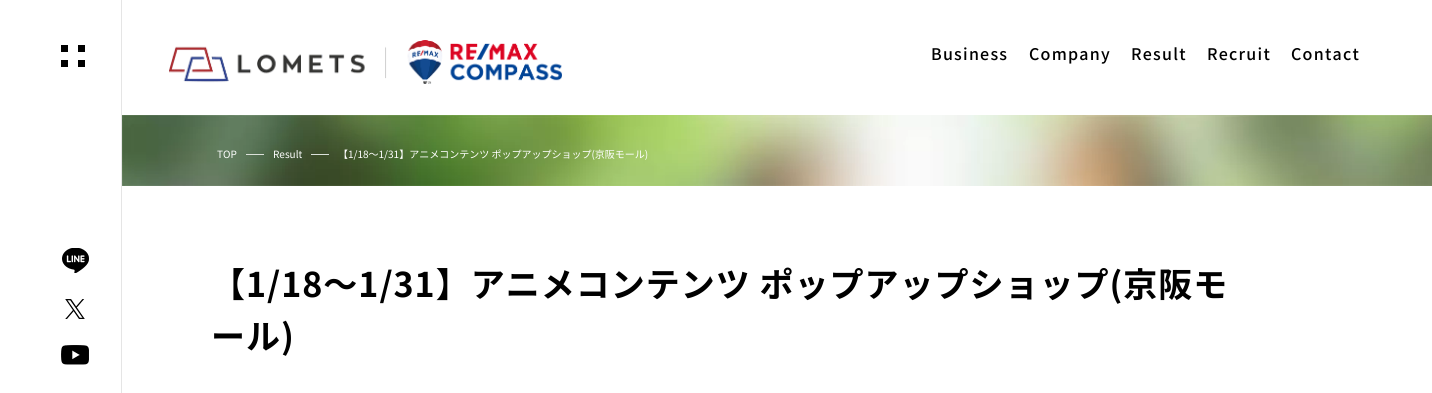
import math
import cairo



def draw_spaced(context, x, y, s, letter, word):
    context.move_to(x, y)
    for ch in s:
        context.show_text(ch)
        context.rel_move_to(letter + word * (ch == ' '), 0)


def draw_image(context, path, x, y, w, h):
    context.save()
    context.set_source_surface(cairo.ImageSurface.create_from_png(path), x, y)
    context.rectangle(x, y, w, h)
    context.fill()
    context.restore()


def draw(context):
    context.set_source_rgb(1, 1, 1)
    context.paint()
    context.set_source_rgb(0, 0, 0)
    context.rectangle(61, 45, 7, 7)
    context.fill()
    context.rectangle(78, 45, 7, 7)
    context.fill()
    context.rectangle(61, 60, 7, 7)
    context.fill()
    context.rectangle(78, 60, 7, 7)
    context.fill()
    draw_image(context, "images/1.png", 169, 40, 393, 44)
    draw_image(context, "images/2.png", 62, 248, 27, 25)
    draw_image(context, "images/3.png", 65, 299, 20, 20)
    draw_image(context, "images/4.png", 61, 345, 28, 20)
    context.set_source_rgb(229 / 255, 229 / 255, 229 / 255)
    context.rectangle(121, 0, 1, 393)
    context.fill()
    draw_image(context, "images/5.png", 122, 115, 1310, 71)
    context.set_source_rgb(218 / 255, 224 / 255, 217 / 255)
    context.rectangle(246, 154, 18, 1)
    context.fill()
    context.rectangle(311, 154, 18, 1)
    context.fill()
    context.select_font_face("Noto Sans JP Medium")
    context.set_font_size(16)
    context.set_source_rgb(0, 0, 0)
    draw_spaced(context, 931, 60, "Business", 1.25, 0)
    draw_spaced(context, 1029, 60, "Company", 1.25, 0)
    draw_spaced(context, 1131, 60, "Result", 1.25, 0)
    draw_spaced(context, 1207, 60, "Recruit", 1.25, 0)
    draw_spaced(context, 1291, 60, "Contact", 1.25, 0)
    context.select_font_face("Noto Sans JP")
    context.set_font_size(10)
    context.set_source_rgb(1, 1, 1)
    context.move_to(217, 158)
    context.show_text("TOP")
    context.move_to(273, 158)
    context.show_text("Result")
    context.move_to(338, 158)
    context.show_text("【1/18～1/31】アニメコンテンツ ポップアップショップ(京阪モール)")
    context.select_font_face("Noto Sans JP", cairo.FontSlant.NORMAL, cairo.FontWeight.BOLD)
    context.set_font_size(34)
    context.set_source_rgb(0, 0, 0)
    draw_spaced(context, 211, 297, "【1/18～1/31】アニメコンテンツ ポップアップショップ(京阪モ", 1, 0)
    draw_spaced(context, 211, 349, "ール)", 1, 0)


surface = cairo.ImageSurface(cairo.Format.RGB24, 1432, 393)
context = cairo.Context(surface)
options = cairo.FontOptions()
options.set_hint_metrics(cairo.HintMetrics.OFF)
options.set_hint_style(cairo.HintStyle.NONE)
context.set_font_options(options)
context.set_miter_limit(4)
draw(context)
surface.write_to_png("out.png")
